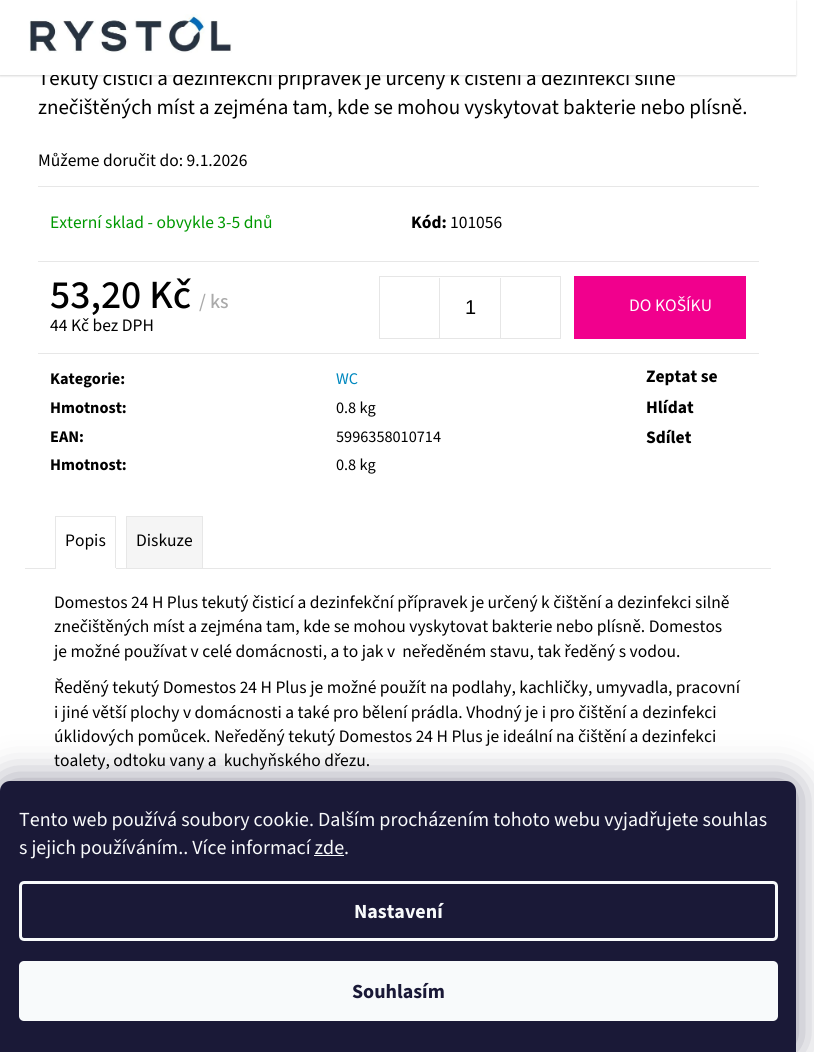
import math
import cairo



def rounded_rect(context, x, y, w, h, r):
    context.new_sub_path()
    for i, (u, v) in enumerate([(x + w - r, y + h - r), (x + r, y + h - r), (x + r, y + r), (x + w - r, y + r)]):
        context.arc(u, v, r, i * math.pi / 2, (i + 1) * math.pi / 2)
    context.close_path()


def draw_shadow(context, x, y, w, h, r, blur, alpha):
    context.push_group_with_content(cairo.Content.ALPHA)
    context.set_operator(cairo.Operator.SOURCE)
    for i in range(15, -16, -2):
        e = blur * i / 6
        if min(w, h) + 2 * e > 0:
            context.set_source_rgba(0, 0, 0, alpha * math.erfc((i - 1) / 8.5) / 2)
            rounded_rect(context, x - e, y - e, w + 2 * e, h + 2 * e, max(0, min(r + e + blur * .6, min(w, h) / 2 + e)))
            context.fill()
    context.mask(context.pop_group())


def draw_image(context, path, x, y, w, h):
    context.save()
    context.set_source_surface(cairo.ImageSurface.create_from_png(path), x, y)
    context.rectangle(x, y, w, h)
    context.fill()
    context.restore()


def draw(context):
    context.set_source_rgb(1, 1, 1)
    context.paint()
    context.set_source_rgb(0, 0, 0)
    draw_shadow(context, 0, 1, 796, 75, 0, 1, 0.16)
    context.set_source_rgb(231 / 255, 231 / 255, 231 / 255)
    context.rectangle(38, 186, 721, 1)
    context.fill()
    context.rectangle(38, 261, 721, 1)
    context.fill()
    context.rectangle(38, 353, 721, 1)
    context.fill()
    context.rectangle(379.5, 276.5, 181, 62)
    context.set_source_rgb(230 / 255, 230 / 255, 230 / 255)
    context.set_line_width(1)
    context.stroke()
    context.rectangle(439, 278, 1, 60)
    context.fill()
    context.rectangle(500, 278, 1, 60)
    context.fill()
    context.set_source_rgb(241 / 255, 0, 141 / 255)
    context.rectangle(574, 276, 172, 63)
    context.fill()
    context.set_source_rgb(231 / 255, 231 / 255, 231 / 255)
    context.rectangle(25, 568, 746, 1)
    context.fill()
    context.rectangle(55, 516, 61, 1)
    context.fill()
    context.rectangle(115, 516, 1, 53)
    context.fill()
    context.set_source_rgb(1, 1, 1)
    context.rectangle(55, 568, 61, 1)
    context.fill()
    context.set_source_rgb(231 / 255, 231 / 255, 231 / 255)
    context.rectangle(55, 516, 1, 53)
    context.fill()
    context.set_source_rgb(245 / 255, 245 / 255, 245 / 255)
    context.rectangle(126.5, 516.5, 76, 52)
    context.fill_preserve()
    context.set_source_rgb(231 / 255, 231 / 255, 231 / 255)
    context.stroke()
    context.set_source_rgb(27 / 255, 25 / 255, 57 / 255)
    draw_shadow(context, 0, 781, 796, 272, 10, 19, 0.5)
    context.set_source_rgb(26 / 255, 25 / 255, 55 / 255)
    context.new_path()
    context.move_to(10, 781)
    context.line_to(786, 781)
    context.curve_to(791.5, 781, 796, 785.5, 796, 791)
    context.line_to(796, 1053)
    context.line_to(0, 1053)
    context.line_to(0, 791)
    context.curve_to(0, 785.5, 4.5, 781, 10, 781)
    context.close_path()
    context.fill()
    context.set_source_rgb(248 / 255, 250 / 255, 251 / 255)
    context.rectangle(314, 855, 30, 1)
    context.fill()
    rounded_rect(context, 20.5, 882.5, 756, 57, 3.5)
    context.set_line_width(3)
    context.stroke()
    rounded_rect(context, 19, 961, 759, 60, 5)
    context.fill()
    context.select_font_face("Source Sans 3")
    context.set_font_size(21)
    context.set_source_rgb(0, 0, 0)
    context.move_to(38, 85)
    context.show_text("Tekutý čisticí a dezinfekční přípravek je určený k čištění a dezinfekci silně")
    context.set_source_rgb(1, 1, 1)
    context.rectangle(0, 0, 796, 75)
    context.fill()
    draw_image(context, "images/1.png", 29, 14, 203, 39)
    context.set_source_rgb(0, 0, 0)
    context.move_to(38, 114)
    context.show_text("znečištěných míst a zejména tam, kde se mohou vyskytovat bakterie nebo plísně.")
    context.set_font_size(17.5)
    context.move_to(38, 166)
    context.show_text("Můžeme doručit do: 9.1.2026")
    context.set_source_rgb(0, 153 / 255, 1 / 255)
    context.move_to(50, 228)
    context.show_text("Externí sklad - obvykle 3-5 dnů")
    context.select_font_face("Source Sans 3", cairo.FontSlant.NORMAL, cairo.FontWeight.BOLD)
    context.set_source_rgb(0, 0, 0)
    context.move_to(411, 228)
    context.show_text("Kód:")
    context.select_font_face("Source Sans 3")
    context.move_to(450, 228)
    context.show_text("101056")
    context.select_font_face("Source Sans 3 Medium")
    context.set_font_size(40)
    context.move_to(50, 308)
    context.show_text("53,20 Kč")
    context.set_font_size(20)
    context.set_source_rgb(170 / 255, 170 / 255, 170 / 255)
    context.move_to(199, 308)
    context.show_text("/ ks")
    context.select_font_face("Source Sans 3")
    context.set_font_size(17.5)
    context.set_source_rgb(0, 0, 0)
    context.move_to(50, 331)
    context.show_text("44 Kč bez DPH")
    context.select_font_face("Liberation Sans")
    context.set_font_size(20)
    context.move_to(465, 314)
    context.show_text("1")
    context.select_font_face("Source Sans 3")
    context.set_font_size(17.5)
    context.set_source_rgb(1, 1, 1)
    context.move_to(629, 311)
    context.show_text("DO KOŠÍKU")
    context.select_font_face("Source Sans 3", cairo.FontSlant.NORMAL, cairo.FontWeight.BOLD)
    context.set_font_size(16.25)
    context.set_source_rgb(0, 0, 0)
    context.move_to(50, 384)
    context.show_text("Kategorie:")
    context.select_font_face("Source Sans 3")
    context.set_source_rgb(0, 136 / 255, 191 / 255)
    context.move_to(336, 384)
    context.show_text("WC")
    context.select_font_face("Source Sans 3", cairo.FontSlant.NORMAL, cairo.FontWeight.BOLD)
    context.set_source_rgb(0, 0, 0)
    context.move_to(50, 413)
    context.show_text("Hmotnost:")
    context.select_font_face("Source Sans 3")
    context.move_to(336, 413)
    context.show_text("0.8 kg")
    context.select_font_face("Source Sans 3", cairo.FontSlant.NORMAL, cairo.FontWeight.BOLD)
    context.move_to(50, 442)
    context.show_text("EAN:")
    context.select_font_face("Source Sans 3")
    context.move_to(336, 442)
    context.show_text("5996358010714")
    context.select_font_face("Source Sans 3", cairo.FontSlant.NORMAL, cairo.FontWeight.BOLD)
    context.move_to(50, 470)
    context.show_text("Hmotnost:")
    context.select_font_face("Source Sans 3")
    context.move_to(336, 470)
    context.show_text("0.8 kg")
    context.select_font_face("Source Sans 3", cairo.FontSlant.NORMAL, cairo.FontWeight.BOLD)
    context.set_font_size(17.5)
    context.move_to(646, 382)
    context.show_text("Zeptat se")
    context.move_to(646, 413)
    context.show_text("Hlídat")
    context.move_to(646, 443)
    context.show_text("Sdílet")
    context.select_font_face("Source Sans 3")
    context.move_to(65, 546)
    context.show_text("Popis")
    context.move_to(136, 546)
    context.show_text("Diskuze")
    context.move_to(54, 608)
    context.show_text("Domestos 24 H Plus tekutý čisticí a dezinfekční přípravek je určený k čištění a dezinfekci silně")
    context.move_to(54, 632)
    context.show_text("znečištěných míst a zejména tam, kde se mohou vyskytovat bakterie nebo plísně. Domestos")
    context.move_to(54, 657)
    context.show_text("je možné používat v celé domácnosti, a to jak v  neředěném stavu, tak ředěný s vodou.")
    context.move_to(54, 693)
    context.show_text("Ředěný tekutý Domestos 24 H Plus je možné použít na podlahy, kachličky, umyvadla, pracovní")
    context.move_to(54, 718)
    context.show_text("i jiné větší plochy v domácnosti a také pro bělení prádla. Vhodný je i pro čištění a dezinfekci")
    context.move_to(54, 742)
    context.show_text("úklidových pomůcek. Neředěný tekutý Domestos 24 H Plus je ideální na čištění a dezinfekci")
    context.move_to(54, 766)
    context.show_text("toalety, odtoku vany a  kuchyňského dřezu.")
    context.set_font_size(20)
    context.set_source_rgb(248 / 255, 250 / 255, 251 / 255)
    context.move_to(19, 826)
    context.show_text("Tento web používá soubory cookie. Dalším procházením tohoto webu vyjadřujete souhlas")
    context.move_to(19, 854)
    context.show_text("s jejich používáním.. Více informací zde.")
    context.select_font_face("Source Sans 3", cairo.FontSlant.NORMAL, cairo.FontWeight.BOLD)
    context.move_to(354, 918)
    context.show_text("Nastavení")
    context.set_source_rgb(26 / 255, 25 / 255, 55 / 255)
    context.move_to(352, 998)
    context.show_text("Souhlasím")


surface = cairo.ImageSurface(cairo.Format.RGB24, 814, 1052)
context = cairo.Context(surface)
options = cairo.FontOptions()
options.set_hint_metrics(cairo.HintMetrics.OFF)
options.set_hint_style(cairo.HintStyle.NONE)
context.set_font_options(options)
context.set_miter_limit(4)
draw(context)
surface.write_to_png("out.png")
